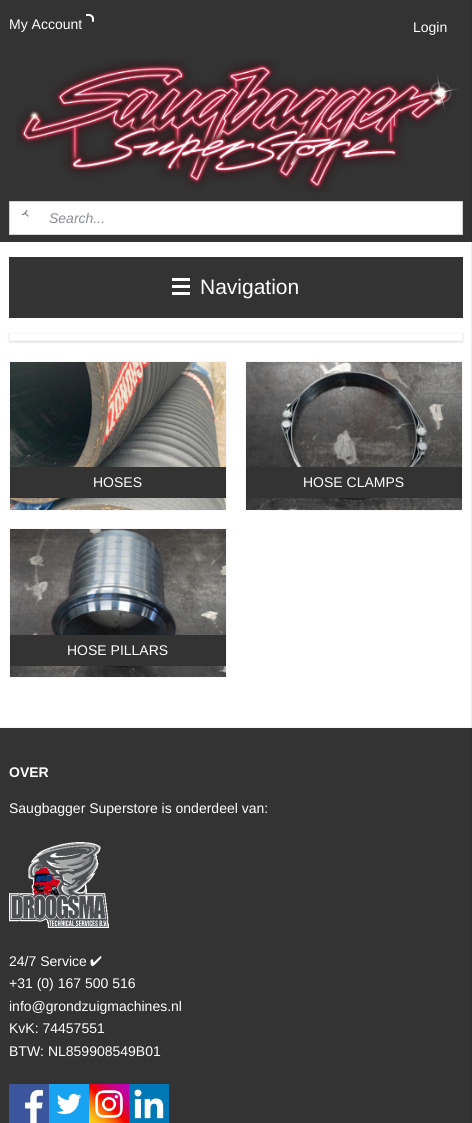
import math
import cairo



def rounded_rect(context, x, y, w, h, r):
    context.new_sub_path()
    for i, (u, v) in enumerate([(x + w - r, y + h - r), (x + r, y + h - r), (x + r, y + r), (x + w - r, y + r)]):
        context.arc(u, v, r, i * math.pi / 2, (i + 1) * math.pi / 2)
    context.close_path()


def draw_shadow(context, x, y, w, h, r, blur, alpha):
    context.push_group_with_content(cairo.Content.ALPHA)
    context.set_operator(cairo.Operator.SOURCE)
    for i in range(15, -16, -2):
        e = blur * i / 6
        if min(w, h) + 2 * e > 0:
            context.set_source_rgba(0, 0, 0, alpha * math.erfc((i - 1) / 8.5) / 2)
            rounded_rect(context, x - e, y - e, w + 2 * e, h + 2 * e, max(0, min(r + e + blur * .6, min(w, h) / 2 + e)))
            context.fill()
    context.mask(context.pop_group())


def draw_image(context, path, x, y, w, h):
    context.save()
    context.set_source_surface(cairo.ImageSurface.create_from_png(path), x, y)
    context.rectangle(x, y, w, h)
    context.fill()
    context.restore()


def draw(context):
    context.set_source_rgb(1, 1, 1)
    context.paint()
    context.set_source_rgb(51 / 255, 51 / 255, 51 / 255)
    context.rectangle(0, 0, 472, 242)
    context.fill()
    draw_image(context, "images/1.png", 86, 14, 8, 8)
    context.set_source_rgb(0, 0, 0)
    draw_shadow(context, 0, 727, 472, 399, 0, 1, 0.05)
    context.set_source_rgb(51 / 255, 51 / 255, 51 / 255)
    context.rectangle(0, 728, 472, 395)
    context.fill()
    context.set_source_rgb(0, 0, 0)
    draw_shadow(context, 472, 1, 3, 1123, 0, 1, 0.2)
    draw_image(context, "images/2.png", 16, 59, 443, 134)
    context.set_source_rgb(1, 1, 1)
    context.rectangle(9.5, 201.5, 453, 33)
    context.fill_preserve()
    context.set_source_rgb(211 / 255, 213 / 255, 217 / 255)
    context.set_line_width(1)
    context.stroke()
    draw_image(context, "images/3.png", 22, 210, 7, 7)
    context.set_source_rgb(51 / 255, 51 / 255, 51 / 255)
    context.rectangle(9, 257, 454, 61)
    context.fill()
    context.set_source_rgb(1, 1, 1)
    context.rectangle(172, 285, 18, 3)
    context.fill()
    context.rectangle(172, 278, 18, 3)
    context.fill()
    context.rectangle(172, 292, 18, 3)
    context.fill()
    context.save()
    context.set_fill_rule(cairo.FillRule.EVEN_ODD)
    context.new_path()
    context.move_to(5, 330)
    context.line_to(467, 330)
    context.line_to(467, 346)
    context.line_to(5, 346)
    context.close_path()
    context.move_to(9, 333)
    context.line_to(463, 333)
    context.line_to(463, 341)
    context.line_to(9, 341)
    context.close_path()
    context.clip()
    context.set_source_rgb(0, 0, 0)
    draw_shadow(context, 9, 334, 454, 8, 0, 1, 0.15)
    context.restore()
    context.rectangle(9.5, 333.5, 453, 7)
    context.set_source_rgb(247 / 255, 247 / 255, 247 / 255)
    context.stroke()
    draw_image(context, "images/4.png", 10, 362, 216, 148)
    context.rectangle(9.5, 361.5, 217, 149)
    context.stroke()
    context.set_source_rgb(51 / 255, 51 / 255, 51 / 255)
    context.rectangle(10, 467, 216, 31)
    context.fill()
    draw_image(context, "images/5.png", 246, 362, 216, 148)
    context.rectangle(245.5, 361.5, 217, 149)
    context.set_source_rgb(247 / 255, 247 / 255, 247 / 255)
    context.stroke()
    context.set_source_rgb(51 / 255, 51 / 255, 51 / 255)
    context.rectangle(246, 467, 216, 31)
    context.fill()
    draw_image(context, "images/6.png", 10, 529, 216, 148)
    context.rectangle(9.5, 528.5, 217, 149)
    context.set_source_rgb(247 / 255, 247 / 255, 247 / 255)
    context.stroke()
    context.set_source_rgb(51 / 255, 51 / 255, 51 / 255)
    context.rectangle(10, 635, 216, 31)
    context.fill()
    draw_image(context, "images/7.png", 9, 842, 100, 86)
    draw_image(context, "images/8.png", 9, 1084, 40, 39)
    draw_image(context, "images/9.png", 49, 1084, 40, 39)
    draw_image(context, "images/10.png", 89, 1084, 40, 39)
    draw_image(context, "images/11.png", 129, 1084, 40, 39)
    context.select_font_face("Liberation Sans")
    context.set_font_size(14)
    context.set_source_rgb(1, 1, 1)
    context.move_to(9, 29)
    context.show_text("My Account")
    context.move_to(413, 32)
    context.show_text("Login")
    context.select_font_face("Liberation Sans", cairo.FontSlant.ITALIC)
    context.set_source_rgb(137 / 255, 140 / 255, 145 / 255)
    context.move_to(49, 223)
    context.show_text("Search...")
    context.select_font_face("Liberation Sans")
    context.set_font_size(21)
    context.set_source_rgb(1, 1, 1)
    context.move_to(200, 294)
    context.show_text("Navigation")
    context.set_font_size(14)
    context.move_to(93, 487)
    context.show_text("HOSES")
    context.move_to(303, 487)
    context.show_text("HOSE CLAMPS")
    context.move_to(67, 655)
    context.show_text("HOSE PILLARS")
    context.select_font_face("Liberation Sans", cairo.FontSlant.NORMAL, cairo.FontWeight.BOLD)
    context.move_to(9, 777)
    context.show_text("OVER")
    context.select_font_face("Liberation Sans")
    context.move_to(9, 813)
    context.show_text("Saugbagger Superstore is onderdeel van:")
    context.move_to(9, 966)
    context.show_text("24/7 Service")
    context.select_font_face("FreeSans")
    context.move_to(90, 966)
    context.show_text("✔")
    context.select_font_face("Liberation Sans")
    context.move_to(9, 988)
    context.show_text("+31 (0) 167 500 516")
    context.move_to(9, 1011)
    context.show_text("info@grondzuigmachines.nl")
    context.move_to(9, 1033)
    context.show_text("KvK: 74457551")
    context.move_to(9, 1056)
    context.show_text("BTW: NL859908549B01")


surface = cairo.ImageSurface(cairo.Format.RGB24, 472, 1123)
context = cairo.Context(surface)
options = cairo.FontOptions()
options.set_hint_metrics(cairo.HintMetrics.OFF)
options.set_hint_style(cairo.HintStyle.NONE)
context.set_font_options(options)
context.set_miter_limit(4)
draw(context)
surface.write_to_png("out.png")
